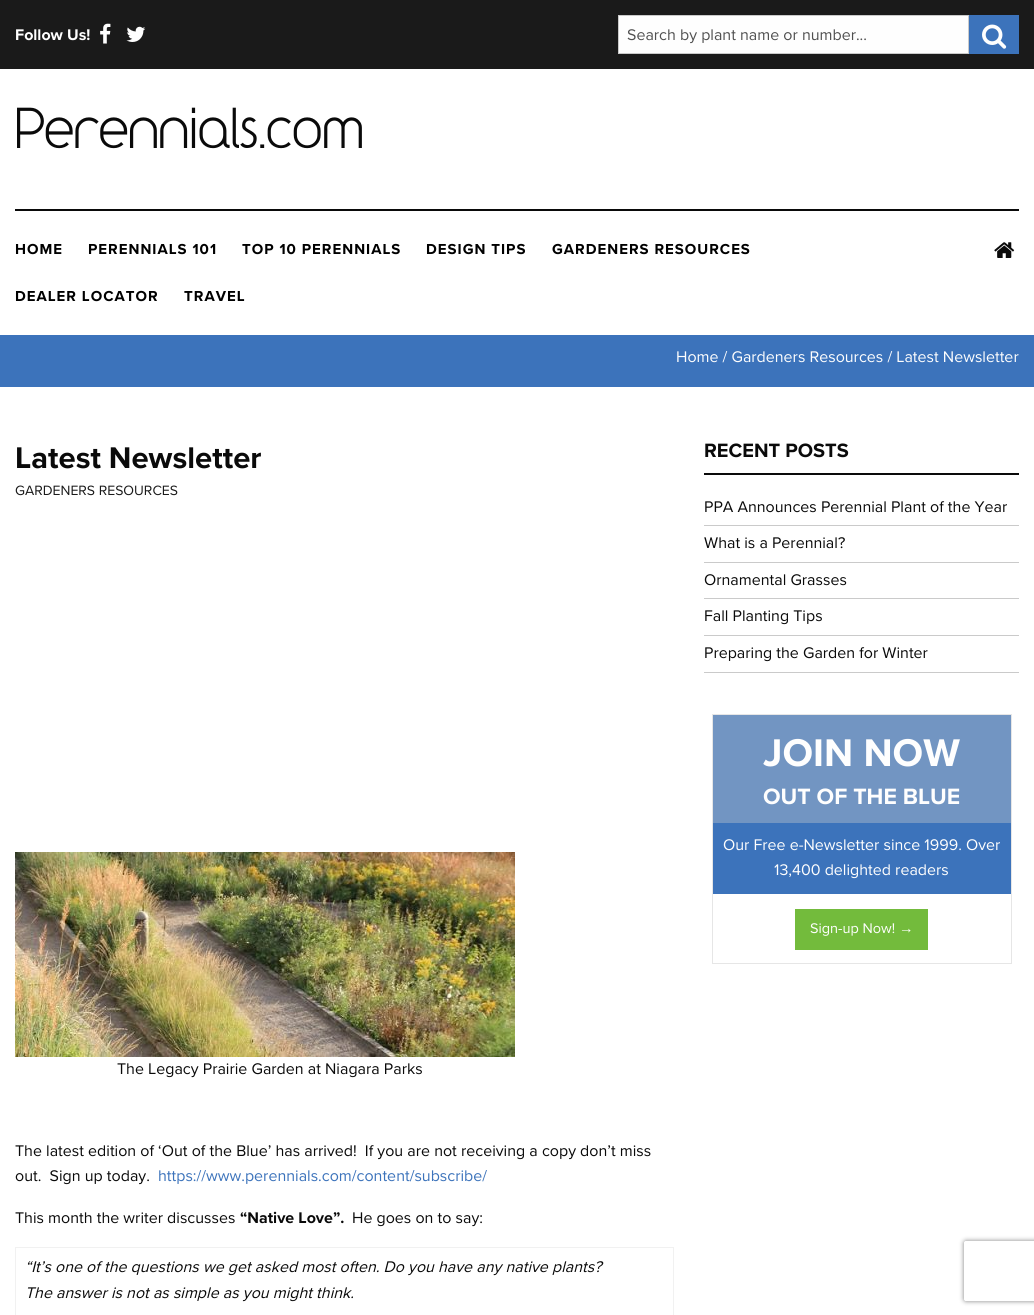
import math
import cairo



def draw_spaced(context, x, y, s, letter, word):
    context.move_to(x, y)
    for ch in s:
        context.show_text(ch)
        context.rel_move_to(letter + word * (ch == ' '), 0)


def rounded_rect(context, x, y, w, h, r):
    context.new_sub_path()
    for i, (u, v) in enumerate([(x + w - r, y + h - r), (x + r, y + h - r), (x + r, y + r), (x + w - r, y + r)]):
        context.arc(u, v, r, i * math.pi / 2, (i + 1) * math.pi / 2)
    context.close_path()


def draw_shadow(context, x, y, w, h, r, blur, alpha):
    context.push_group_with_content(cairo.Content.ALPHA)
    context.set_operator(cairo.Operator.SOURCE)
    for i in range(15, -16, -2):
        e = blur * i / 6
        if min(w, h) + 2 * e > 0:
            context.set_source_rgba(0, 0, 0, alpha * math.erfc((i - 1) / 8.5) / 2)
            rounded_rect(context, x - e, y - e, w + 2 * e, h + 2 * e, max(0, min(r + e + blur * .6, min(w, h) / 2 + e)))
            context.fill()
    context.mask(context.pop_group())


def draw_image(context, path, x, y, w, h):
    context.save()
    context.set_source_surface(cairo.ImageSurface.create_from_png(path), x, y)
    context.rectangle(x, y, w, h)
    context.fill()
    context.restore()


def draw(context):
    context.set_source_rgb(1, 1, 1)
    context.paint()
    context.set_source_rgb(26 / 255, 26 / 255, 26 / 255)
    context.rectangle(0, 0, 1034, 69)
    context.fill()
    draw_image(context, "images/1.png", 100, 23, 11, 21)
    draw_image(context, "images/2.png", 126, 26, 20, 16)
    context.set_source_rgb(254 / 255, 254 / 255, 254 / 255)
    context.rectangle(618.5, 15.5, 350, 38)
    context.fill_preserve()
    context.set_source_rgb(202 / 255, 202 / 255, 202 / 255)
    context.set_line_width(1)
    context.stroke()
    context.set_source_rgb(60 / 255, 115 / 255, 187 / 255)
    context.rectangle(969, 15, 50, 39)
    context.fill()
    draw_image(context, "images/3.png", 982, 24, 25, 25)
    context.set_source_rgb(10 / 255, 10 / 255, 10 / 255)
    context.rectangle(15, 209, 1004, 2)
    context.fill()
    draw_image(context, "images/4.png", 994, 242, 21, 16)
    context.set_source_rgb(60 / 255, 115 / 255, 187 / 255)
    context.rectangle(0, 335, 1034, 52)
    context.fill()
    draw_image(context, "images/5.png", 15, 852, 500, 205)
    context.rectangle(15.5, 1247.5, 658, 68)
    context.set_source_rgb(241 / 255, 241 / 255, 241 / 255)
    context.stroke()
    context.set_source_rgb(10 / 255, 10 / 255, 10 / 255)
    context.rectangle(704, 473, 315, 2)
    context.fill()
    context.set_source_rgb(202 / 255, 202 / 255, 202 / 255)
    context.rectangle(704, 525, 315, 1)
    context.fill()
    context.rectangle(704, 562, 315, 1)
    context.fill()
    context.rectangle(704, 598, 315, 1)
    context.fill()
    context.rectangle(704, 635, 315, 1)
    context.fill()
    context.rectangle(704, 672, 315, 1)
    context.fill()
    context.rectangle(712.5, 714.5, 299, 249)
    context.set_source_rgb(230 / 255, 230 / 255, 230 / 255)
    context.stroke()
    context.set_source_rgb(114 / 255, 149 / 255, 194 / 255)
    context.rectangle(713, 715, 298, 108)
    context.fill()
    context.set_source_rgb(60 / 255, 115 / 255, 187 / 255)
    context.rectangle(713, 823, 298, 71)
    context.fill()
    context.set_source_rgb(115 / 255, 187 / 255, 60 / 255)
    context.rectangle(795, 909, 133, 41)
    context.fill()
    context.save()
    context.set_fill_rule(cairo.FillRule.EVEN_ODD)
    context.new_path()
    context.move_to(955, 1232)
    context.line_to(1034, 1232)
    context.line_to(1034, 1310)
    context.line_to(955, 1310)
    context.close_path()
    context.move_to(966, 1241)
    context.line_to(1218, 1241)
    context.curve_to(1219, 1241, 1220, 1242, 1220, 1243)
    context.line_to(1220, 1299)
    context.curve_to(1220, 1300, 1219, 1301, 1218, 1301)
    context.line_to(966, 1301)
    context.curve_to(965, 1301, 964, 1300, 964, 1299)
    context.line_to(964, 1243)
    context.curve_to(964, 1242, 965, 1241, 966, 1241)
    context.close_path()
    context.clip()
    context.set_source_rgb(128 / 255, 128 / 255, 128 / 255)
    draw_shadow(context, 964, 1241, 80, 60, 2, 2.5, 1)
    context.restore()
    context.select_font_face("Proxima Nova", cairo.FontSlant.NORMAL, cairo.FontWeight.BOLD)
    context.set_font_size(16)
    context.set_source_rgb(254 / 255, 254 / 255, 254 / 255)
    context.move_to(15, 40)
    context.show_text("Follow Us!")
    context.select_font_face("Proxima Nova")
    context.set_source_rgb(80 / 255, 80 / 255, 80 / 255)
    context.move_to(627, 40)
    context.show_text("Search by plant name or number...")
    context.select_font_face("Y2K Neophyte")
    context.set_font_size(48)
    context.set_source_rgb(10 / 255, 10 / 255, 10 / 255)
    context.move_to(15, 148)
    context.show_text("Perennials.com")
    context.select_font_face("Proxima Nova", cairo.FontSlant.NORMAL, cairo.FontWeight.BOLD)
    context.set_font_size(15)
    context.set_source_rgb(0, 0, 0)
    draw_spaced(context, 15, 254, "HOME", 1, 0)
    draw_spaced(context, 88, 254, "PERENNIALS 101", 1, 0)
    draw_spaced(context, 242, 254, "TOP 10 PERENNIALS", 1, 0)
    draw_spaced(context, 426, 254, "DESIGN TIPS", 1, 0)
    draw_spaced(context, 552, 254, "GARDENERS RESOURCES", 1, 0)
    draw_spaced(context, 15, 301, "DEALER LOCATOR", 1, 0)
    draw_spaced(context, 184, 301, "TRAVEL", 1, 0)
    context.select_font_face("Proxima Nova")
    context.set_font_size(16)
    context.set_source_rgb(254 / 255, 254 / 255, 254 / 255)
    context.move_to(676, 362)
    context.show_text("Home / Gardeners Resources / Latest Newsletter")
    context.select_font_face("Proxima Nova", cairo.FontSlant.NORMAL, cairo.FontWeight.BOLD)
    context.set_font_size(31)
    context.set_source_rgb(10 / 255, 10 / 255, 10 / 255)
    context.move_to(15, 468)
    context.show_text("Latest Newsletter")
    context.select_font_face("Proxima Nova")
    context.set_font_size(14)
    context.set_source_rgb(26 / 255, 26 / 255, 26 / 255)
    context.move_to(15, 495)
    context.show_text("GARDENERS RESOURCES")
    context.set_font_size(16)
    context.set_source_rgb(10 / 255, 10 / 255, 10 / 255)
    context.move_to(117, 1074)
    context.show_text("The Legacy Prairie Garden at Niagara Parks")
    context.move_to(15, 1156)
    context.show_text("The latest edition of ‘Out of the Blue’ has arrived!  If you are not receiving a copy don’t miss")
    context.move_to(15, 1181)
    context.show_text("out.  Sign up today.")
    context.set_source_rgb(60 / 255, 115 / 255, 187 / 255)
    context.move_to(158, 1181)
    context.show_text("https://www.perennials.com/content/subscribe/")
    context.set_source_rgb(10 / 255, 10 / 255, 10 / 255)
    context.move_to(15, 1223)
    context.show_text("This month the writer discusses")
    context.select_font_face("Proxima Nova", cairo.FontSlant.NORMAL, cairo.FontWeight.BOLD)
    context.move_to(240, 1223)
    context.show_text("“Native Love”.")
    context.select_font_face("Proxima Nova")
    context.move_to(352, 1223)
    context.show_text("He goes on to say:")
    context.select_font_face("Proxima Nova", cairo.FontSlant.ITALIC)
    context.move_to(25, 1272)
    context.show_text("“It’s one of the questions we get asked most often. Do you have any native plants?")
    context.move_to(25, 1298)
    context.show_text("The answer is not as simple as you might think.")
    context.select_font_face("Proxima Nova", cairo.FontSlant.NORMAL, cairo.FontWeight.BOLD)
    context.set_font_size(20)
    context.move_to(704, 457)
    context.show_text("RECENT POSTS")
    context.select_font_face("Proxima Nova")
    context.set_font_size(16)
    context.move_to(704, 512)
    context.show_text("PPA Announces Perennial Plant of the Year")
    context.move_to(704, 548)
    context.show_text("What is a Perennial?")
    context.move_to(704, 585)
    context.show_text("Ornamental Grasses")
    context.move_to(704, 621)
    context.show_text("Fall Planting Tips")
    context.move_to(704, 658)
    context.show_text("Preparing the Garden for Winter")
    context.select_font_face("Proxima Nova", cairo.FontSlant.NORMAL, cairo.FontWeight.BOLD)
    context.set_font_size(40)
    context.set_source_rgb(254 / 255, 254 / 255, 254 / 255)
    context.move_to(763, 766)
    context.show_text("JOIN NOW")
    context.set_font_size(23)
    context.move_to(763, 804)
    context.show_text("OUT OF THE BLUE")
    context.select_font_face("Proxima Nova")
    context.set_font_size(16)
    context.move_to(723, 850)
    context.show_text("Our Free e-Newsletter since 1999. Over")
    context.move_to(774, 875)
    context.show_text("13,400 delighted readers")
    context.set_font_size(14.5)
    context.move_to(810, 933)
    context.show_text("Sign-up Now!")
    context.select_font_face("Liberation Sans")
    context.move_to(899, 933)
    context.show_text("→")


surface = cairo.ImageSurface(cairo.Format.RGB24, 1034, 1315)
context = cairo.Context(surface)
options = cairo.FontOptions()
options.set_hint_metrics(cairo.HintMetrics.OFF)
options.set_hint_style(cairo.HintStyle.NONE)
context.set_font_options(options)
context.set_miter_limit(4)
draw(context)
surface.write_to_png("out.png")
